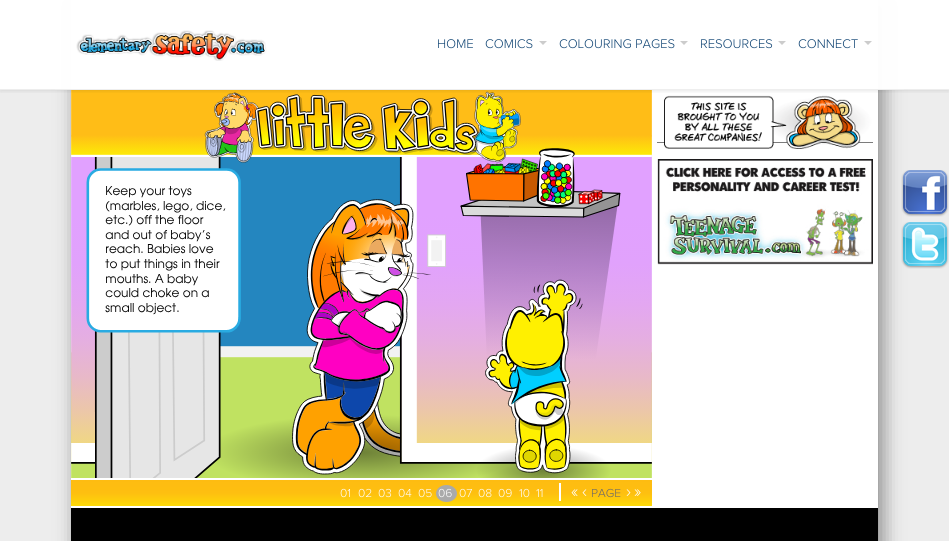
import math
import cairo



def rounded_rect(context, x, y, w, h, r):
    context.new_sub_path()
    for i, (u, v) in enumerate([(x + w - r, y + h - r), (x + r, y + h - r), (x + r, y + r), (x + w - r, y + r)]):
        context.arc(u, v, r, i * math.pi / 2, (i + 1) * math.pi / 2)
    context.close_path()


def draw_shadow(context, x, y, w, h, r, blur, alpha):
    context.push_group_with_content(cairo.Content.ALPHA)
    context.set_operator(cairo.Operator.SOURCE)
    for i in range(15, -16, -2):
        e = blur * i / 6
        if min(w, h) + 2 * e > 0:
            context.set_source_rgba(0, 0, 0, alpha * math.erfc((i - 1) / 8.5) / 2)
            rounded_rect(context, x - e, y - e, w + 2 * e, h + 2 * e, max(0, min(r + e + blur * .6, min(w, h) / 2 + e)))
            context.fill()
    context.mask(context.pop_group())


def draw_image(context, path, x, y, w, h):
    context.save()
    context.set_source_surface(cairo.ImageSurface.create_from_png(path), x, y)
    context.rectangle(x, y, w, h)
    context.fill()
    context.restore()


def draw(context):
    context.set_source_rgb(237 / 255, 237 / 255, 237 / 255)
    context.paint()
    context.set_source_rgb(68 / 255, 68 / 255, 68 / 255)
    draw_shadow(context, 75, 4, 809, 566, 0, 9.5, 0.55)
    context.set_source_rgb(1, 1, 1)
    context.rectangle(71, 0, 807, 508)
    context.fill()
    draw_image(context, "images/7.png", 71, 90, 581, 388)
    draw_image(context, "images/24.png", 657, 95, 216, 170)
    context.save()
    context.rectangle(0, 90, 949, 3)
    context.clip()
    context.set_source_rgb(0, 0, 0)
    draw_shadow(context, 0, 1, 949, 90, 0, 2.5, 0.1)
    context.restore()
    context.set_source_rgba(1, 1, 1, 0.98)
    context.rectangle(0, 0, 949, 89)
    context.fill()
    context.set_source_rgb(238 / 255, 238 / 255, 238 / 255)
    context.rectangle(55, 89, 849, 1)
    context.fill()
    draw_image(context, "images/1.png", 76, 30, 191, 31)
    draw_image(context, "images/2.png", 438, 39, 35, 10)
    draw_image(context, "images/3.png", 485, 39, 48, 10)
    context.set_source_rgb(204 / 255, 204 / 255, 204 / 255)
    context.new_path()
    context.move_to(539, 41)
    context.line_to(547, 41)
    context.line_to(543, 45)
    context.close_path()
    context.fill()
    draw_image(context, "images/4.png", 559, 39, 116, 10)
    context.new_path()
    context.move_to(680, 41)
    context.line_to(688, 41)
    context.line_to(684, 45)
    context.close_path()
    context.fill()
    draw_image(context, "images/5.png", 701, 39, 72, 10)
    context.new_path()
    context.move_to(778, 41)
    context.line_to(786, 41)
    context.line_to(782, 45)
    context.close_path()
    context.fill()
    draw_image(context, "images/6.png", 798, 39, 60, 10)
    context.new_path()
    context.move_to(864, 41)
    context.line_to(872, 41)
    context.line_to(868, 45)
    context.close_path()
    context.fill()
    gradient = cairo.LinearGradient(362, 480, 362, 506)
    gradient.add_color_stop_rgba(0, 254 / 255, 188 / 255, 17 / 255, 1)
    gradient.add_color_stop_rgba(0.51, 254 / 255, 191 / 255, 16 / 255, 1)
    gradient.add_color_stop_rgba(1, 254 / 255, 218 / 255, 8 / 255, 1)
    context.set_source(gradient)
    context.rectangle(71, 480, 581, 26)
    context.fill()
    draw_image(context, "images/8.png", 340, 488, 10, 10)
    draw_image(context, "images/9.png", 358, 488, 14, 10)
    draw_image(context, "images/10.png", 378, 488, 14, 10)
    draw_image(context, "images/11.png", 398, 488, 14, 10)
    draw_image(context, "images/12.png", 418, 488, 14, 10)
    context.set_source_rgb(170 / 255, 170 / 255, 170 / 255)
    context.new_path()
    context.move_to(446.5, 485)
    context.curve_to(452.5, 485, 457, 489, 457, 493.5)
    context.curve_to(457, 498, 452.5, 502, 446.5, 502)
    context.curve_to(440.5, 502, 436, 498, 436, 493.5)
    context.curve_to(436, 489, 440.5, 485, 446.5, 485)
    context.close_path()
    context.fill()
    context.set_source_rgb(1, 1, 1)
    context.rectangle(559, 483, 2, 18)
    context.fill()
    draw_image(context, "images/13.png", 438, 488, 14, 10)
    draw_image(context, "images/14.png", 459, 488, 13, 10)
    draw_image(context, "images/15.png", 478, 488, 14, 10)
    draw_image(context, "images/16.png", 498, 488, 14, 10)
    draw_image(context, "images/17.png", 519, 488, 11, 10)
    draw_image(context, "images/18.png", 536, 489, 7, 8)
    draw_image(context, "images/19.png", 571, 489, 7, 7)
    draw_image(context, "images/20.png", 582, 489, 5, 7)
    draw_image(context, "images/21.png", 592, 488, 29, 10)
    draw_image(context, "images/22.png", 626, 489, 5, 7)
    draw_image(context, "images/23.png", 634, 489, 7, 7)
    draw_image(context, "images/25.png", 901, 170, 48, 47)
    draw_image(context, "images/26.png", 901, 222, 48, 47)
    context.set_source_rgb(0, 0, 0)
    context.rectangle(71, 508, 807, 33)
    context.fill()


surface = cairo.ImageSurface(cairo.Format.RGB24, 949, 541)
context = cairo.Context(surface)
options = cairo.FontOptions()
options.set_hint_metrics(cairo.HintMetrics.OFF)
options.set_hint_style(cairo.HintStyle.NONE)
context.set_font_options(options)
context.set_miter_limit(4)
draw(context)
surface.write_to_png("out.png")
